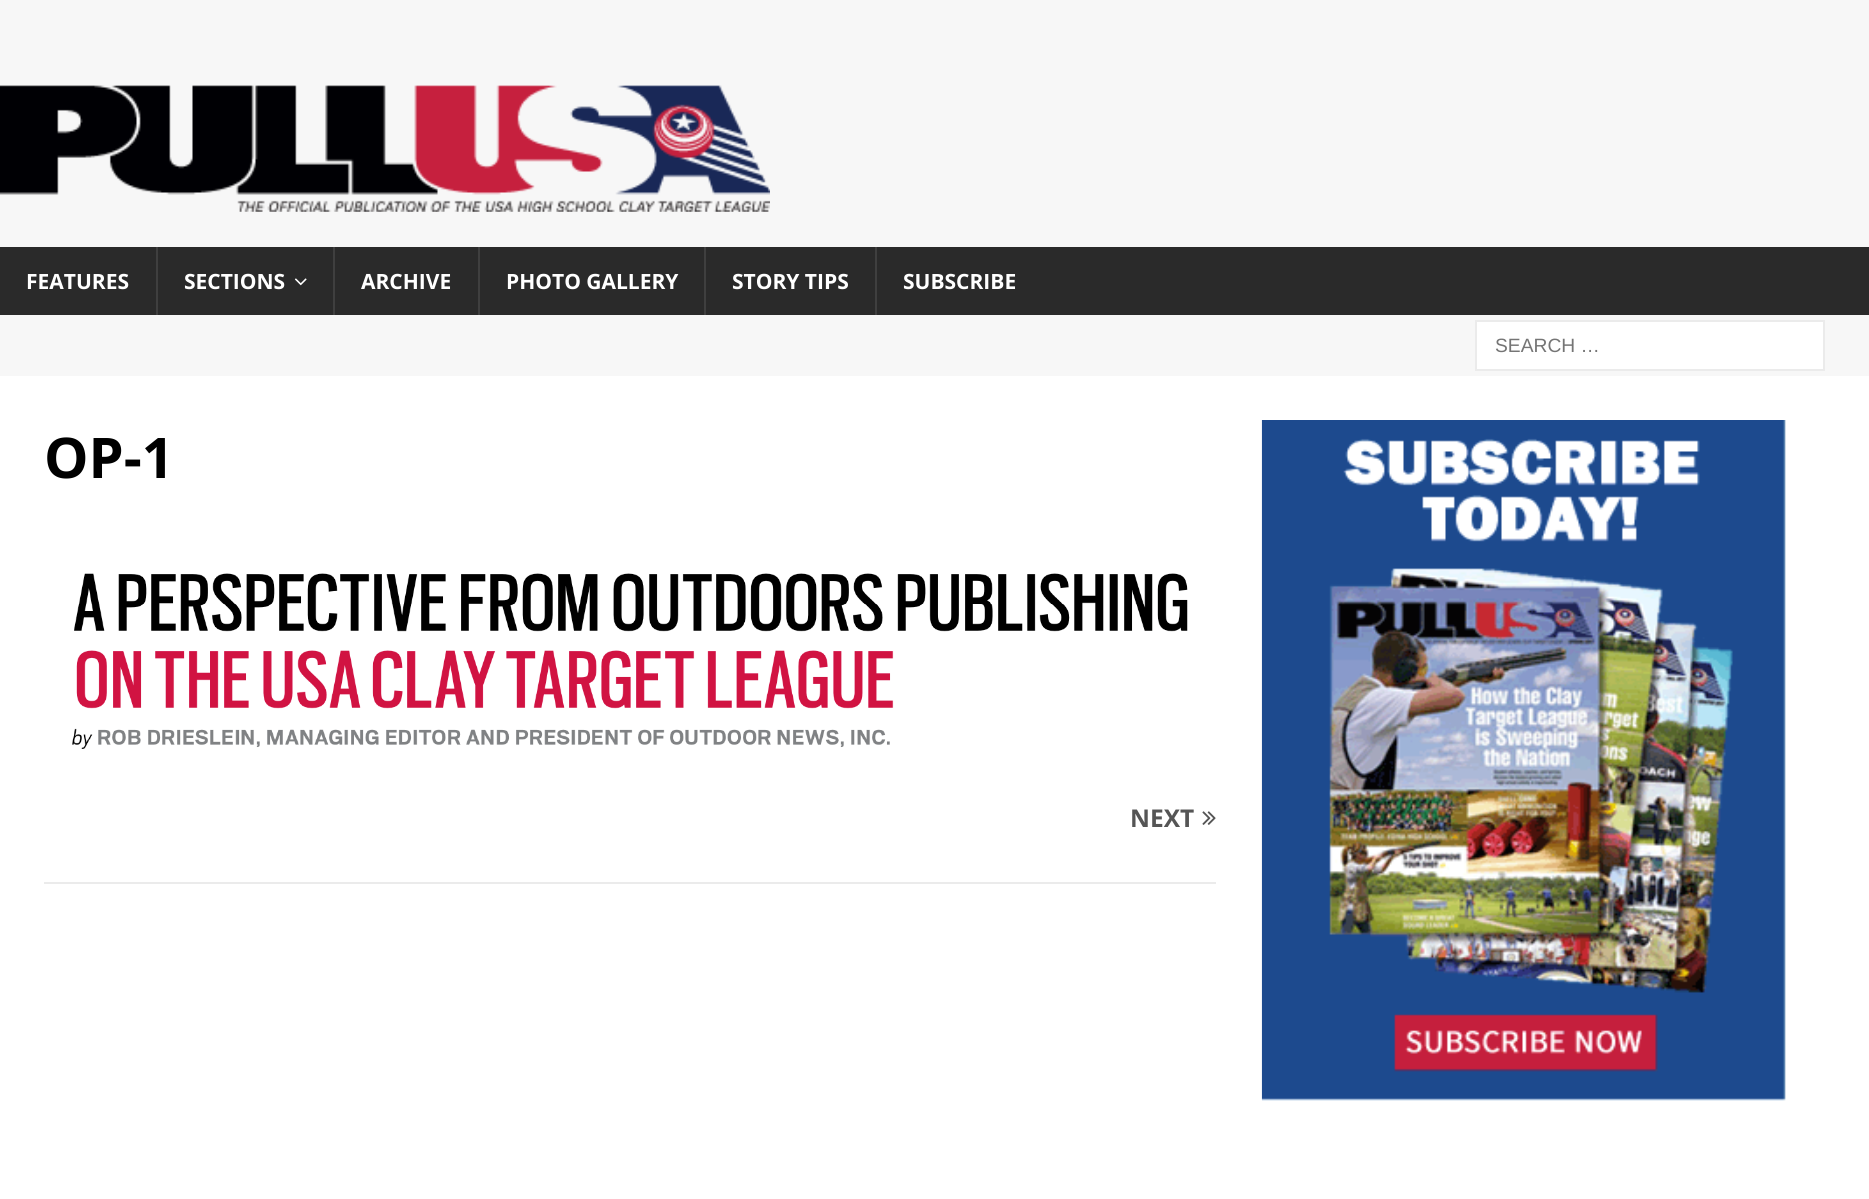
import math
import cairo



def draw_image(context, path, x, y, w, h):
    context.save()
    context.set_source_surface(cairo.ImageSurface.create_from_png(path), x, y)
    context.rectangle(x, y, w, h)
    context.fill()
    context.restore()


def draw(context):
    context.set_source_rgb(247 / 255, 247 / 255, 247 / 255)
    context.paint()
    draw_image(context, "images/1.png", 0, 85, 770, 127)
    context.set_source_rgb(42 / 255, 42 / 255, 42 / 255)
    context.rectangle(0, 247, 1869, 68)
    context.fill()
    context.set_source_rgb(63 / 255, 63 / 255, 63 / 255)
    context.rectangle(156, 247, 2, 68)
    context.fill()
    draw_image(context, "images/2.png", 294, 278, 13, 8)
    context.rectangle(333, 247, 2, 68)
    context.fill()
    context.rectangle(478, 247, 2, 68)
    context.fill()
    context.rectangle(704, 247, 2, 68)
    context.fill()
    context.rectangle(875, 247, 2, 68)
    context.fill()
    context.set_source_rgb(1, 1, 1)
    context.rectangle(1476, 321, 348, 49)
    context.fill_preserve()
    context.set_source_rgb(235 / 255, 235 / 255, 235 / 255)
    context.stroke()
    context.set_source_rgb(1, 1, 1)
    context.rectangle(0, 376, 1869, 823)
    context.fill()
    draw_image(context, "images/3.png", 72, 573, 1116, 176)
    context.set_source_rgb(235 / 255, 235 / 255, 235 / 255)
    context.rectangle(44, 882, 1172, 2)
    context.fill()
    draw_image(context, "images/4.png", 1202, 811, 14, 14)
    draw_image(context, "images/5.png", 1261, 420, 525, 681)
    context.select_font_face("Open Sans", cairo.FontSlant.NORMAL, cairo.FontWeight.BOLD)
    context.set_font_size(21)
    context.set_source_rgb(1, 1, 1)
    context.move_to(26, 289)
    context.show_text("FEATURES")
    context.move_to(184, 289)
    context.show_text("SECTIONS")
    context.move_to(361, 289)
    context.show_text("ARCHIVE")
    context.move_to(506, 289)
    context.show_text("PHOTO GALLERY")
    context.move_to(732, 289)
    context.show_text("STORY TIPS")
    context.move_to(903, 289)
    context.show_text("SUBSCRIBE")
    context.select_font_face("Liberation Sans")
    context.set_font_size(19.25)
    context.set_source_rgb(117 / 255, 117 / 255, 117 / 255)
    context.move_to(1495, 352)
    context.show_text("SEARCH …")
    context.select_font_face("Open Sans", cairo.FontSlant.NORMAL, cairo.FontWeight.BOLD)
    context.set_font_size(56)
    context.set_source_rgb(0, 0, 0)
    context.move_to(44, 478)
    context.show_text("OP-1")
    context.set_font_size(24.5)
    context.set_source_rgb(85 / 255, 85 / 255, 85 / 255)
    context.move_to(1130, 827)
    context.show_text("NEXT")


surface = cairo.ImageSurface(cairo.Format.RGB24, 1869, 1199)
context = cairo.Context(surface)
options = cairo.FontOptions()
options.set_hint_metrics(cairo.HintMetrics.OFF)
options.set_hint_style(cairo.HintStyle.NONE)
context.set_font_options(options)
context.set_miter_limit(4)
draw(context)
surface.write_to_png("out.png")
